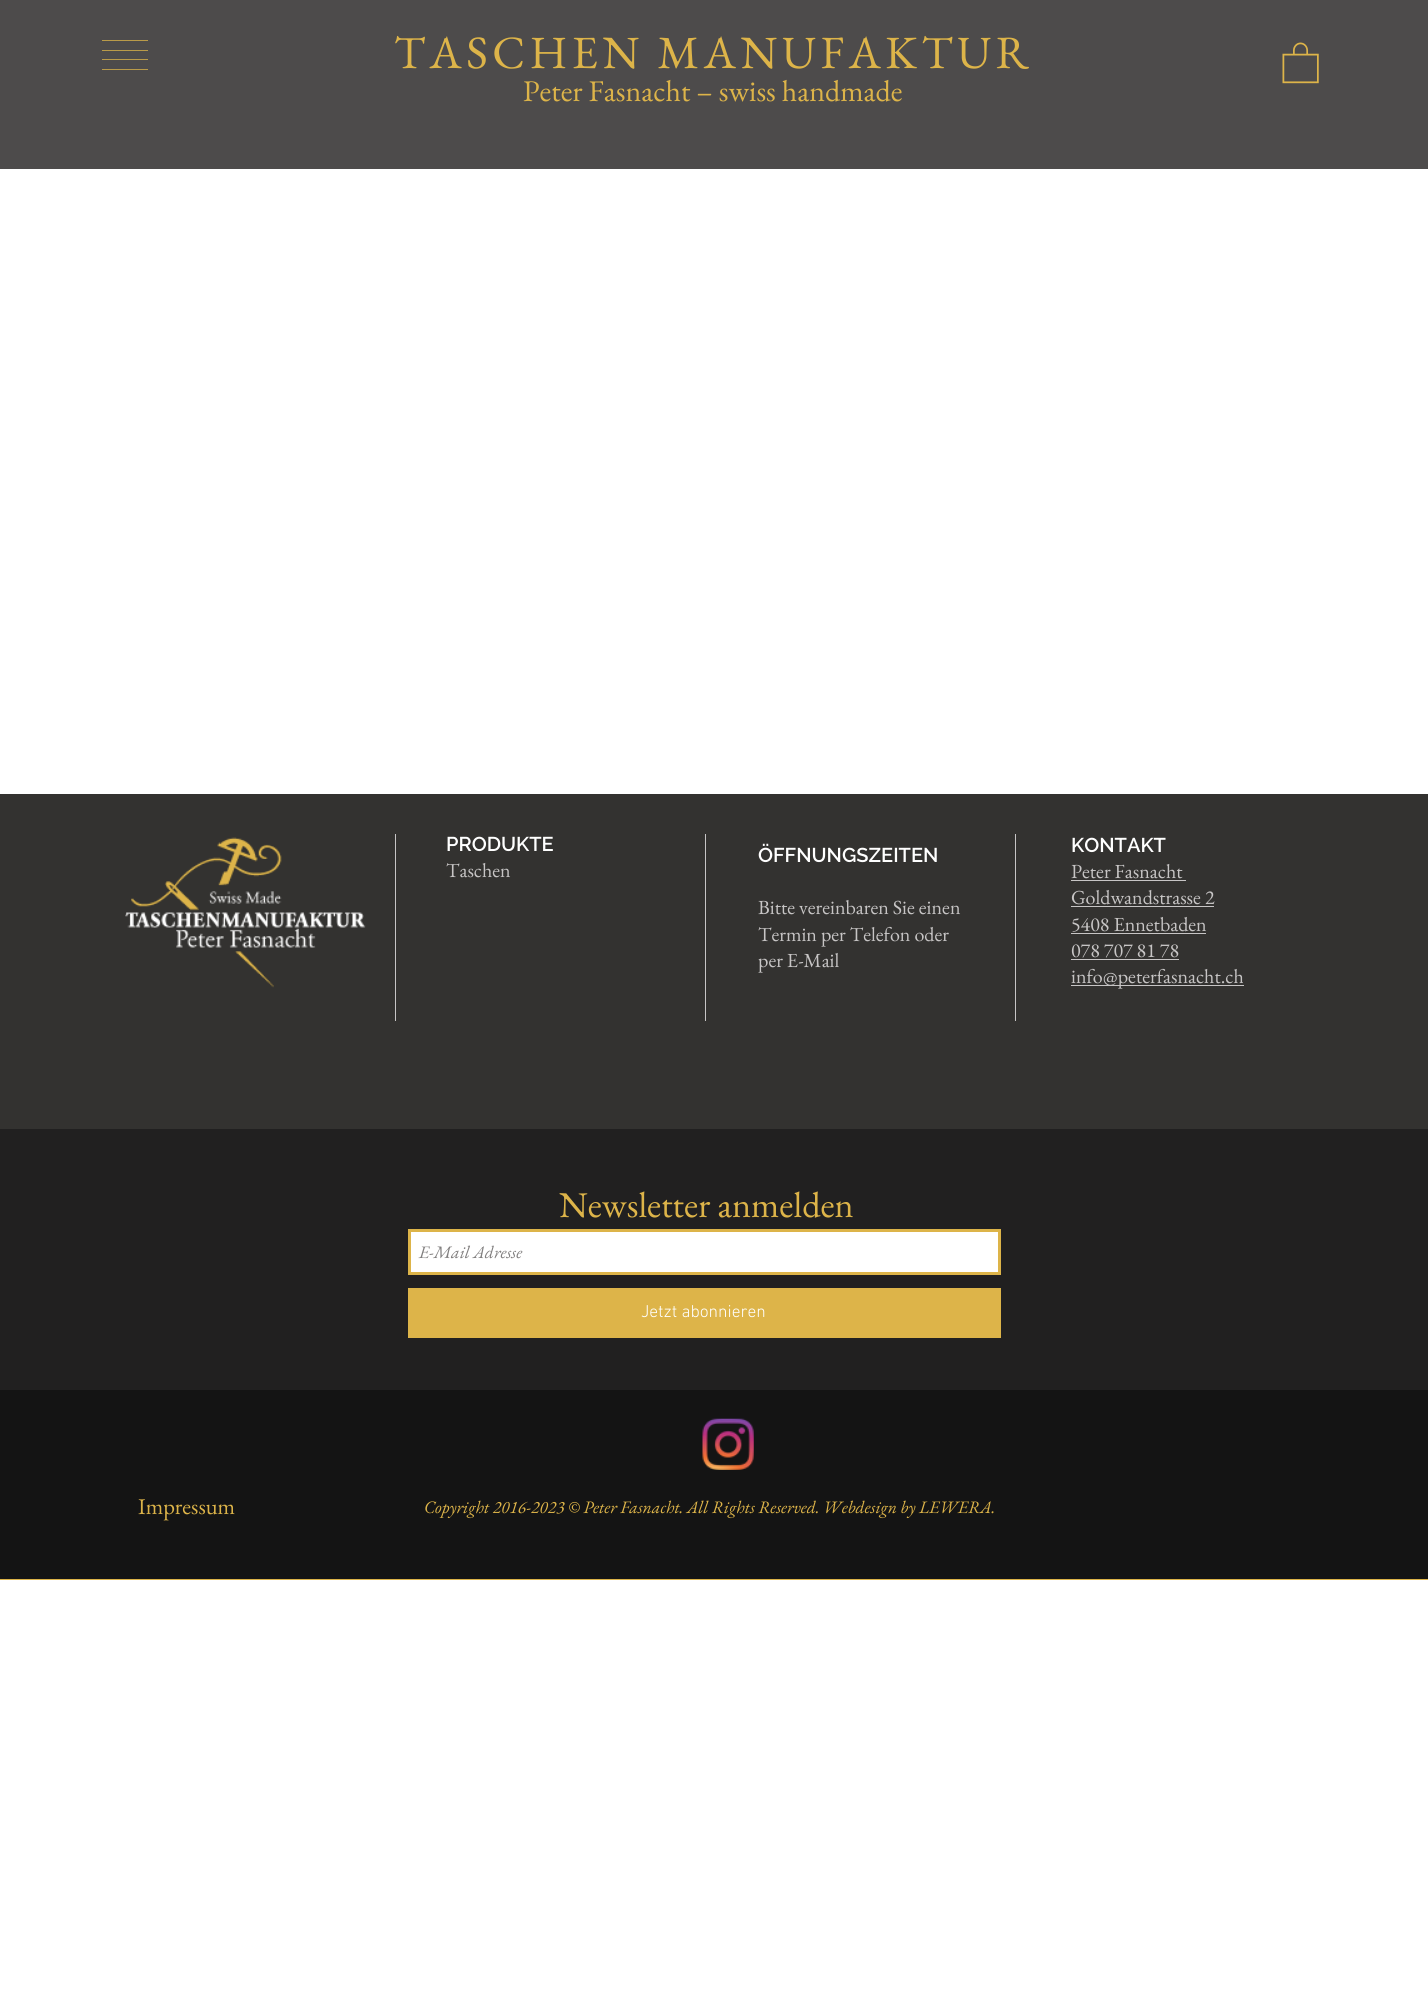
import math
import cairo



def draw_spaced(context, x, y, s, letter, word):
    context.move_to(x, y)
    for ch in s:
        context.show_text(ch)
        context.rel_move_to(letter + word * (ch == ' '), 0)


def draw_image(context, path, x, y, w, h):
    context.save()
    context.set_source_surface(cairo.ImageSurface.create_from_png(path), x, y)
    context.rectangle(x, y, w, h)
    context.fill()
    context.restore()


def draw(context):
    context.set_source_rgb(1, 1, 1)
    context.paint()
    context.set_source_rgb(77 / 255, 75 / 255, 75 / 255)
    context.rectangle(0, 0, 1428, 169)
    context.fill()
    context.set_source_rgb(186 / 255, 155 / 255, 73 / 255)
    context.new_path()
    context.move_to(148, 40)
    context.line_to(148, 41)
    context.line_to(102, 41)
    context.line_to(102, 40)
    context.close_path()
    context.move_to(102, 51)
    context.line_to(148, 51)
    context.line_to(148, 50)
    context.line_to(102, 50)
    context.close_path()
    context.move_to(102, 60)
    context.line_to(148, 60)
    context.line_to(148, 59)
    context.line_to(102, 59)
    context.close_path()
    context.move_to(102, 70)
    context.line_to(148, 70)
    context.line_to(148, 69)
    context.line_to(102, 69)
    context.close_path()
    context.fill()
    draw_image(context, "images/1.png", 1282, 42, 37, 42)
    context.set_source_rgb(51 / 255, 50 / 255, 48 / 255)
    context.rectangle(0, 794, 1428, 335)
    context.fill()
    context.set_source_rgb(199 / 255, 197 / 255, 197 / 255)
    context.rectangle(705, 834, 1, 187)
    context.fill()
    context.rectangle(1015, 834, 1, 187)
    context.fill()
    context.rectangle(395, 834, 1, 187)
    context.fill()
    draw_image(context, "images/2.png", 125, 837, 241, 151)
    context.rectangle(1071, 880, 115, 1)
    context.fill()
    context.rectangle(1071, 906, 143, 1)
    context.fill()
    context.rectangle(1071, 933, 135, 1)
    context.fill()
    context.rectangle(1071, 959, 108, 1)
    context.fill()
    context.rectangle(1071, 985, 173, 1)
    context.fill()
    context.set_source_rgb(33 / 255, 32 / 255, 32 / 255)
    context.rectangle(0, 1129, 1428, 261)
    context.fill()
    context.set_source_rgb(1, 1, 1)
    context.rectangle(409.5, 1230.5, 590, 43)
    context.fill_preserve()
    context.set_source_rgb(221 / 255, 180 / 255, 73 / 255)
    context.set_line_width(3)
    context.stroke()
    context.rectangle(408, 1288, 593, 50)
    context.fill()
    context.set_source_rgb(20 / 255, 20 / 255, 20 / 255)
    context.rectangle(0, 1390, 1428, 189)
    context.fill()
    draw_image(context, "images/3.png", 702, 1418, 52, 52)
    context.set_source_rgb(221 / 255, 180 / 255, 73 / 255)
    context.rectangle(0, 1579, 1428, 1)
    context.fill()
    context.select_font_face("EB Garamond")
    context.set_font_size(46.25)
    draw_spaced(context, 394, 68, "TASCHEN MANUFAKTUR", 4.6, 0)
    context.set_font_size(30)
    context.move_to(523, 101)
    context.show_text("Peter Fasnacht – swiss handmade")
    context.select_font_face("Raleway SemiBold")
    context.set_font_size(20)
    context.set_source_rgb(1, 1, 1)
    context.move_to(446, 851)
    context.show_text("PRODUKTE")
    context.select_font_face("EB Garamond")
    context.set_source_rgb(199 / 255, 197 / 255, 197 / 255)
    context.move_to(446, 877)
    context.show_text("Taschen")
    context.select_font_face("Raleway SemiBold")
    context.set_source_rgb(1, 1, 1)
    context.move_to(758, 862)
    context.show_text("ÖFFNUNGSZEITEN")
    context.select_font_face("EB Garamond")
    context.set_source_rgb(199 / 255, 197 / 255, 197 / 255)
    context.move_to(758, 914)
    context.show_text("Bitte vereinbaren Sie einen")
    context.move_to(758, 941)
    context.show_text("Termin per Telefon oder")
    context.move_to(758, 967)
    context.show_text("per E-Mail")
    context.select_font_face("Raleway SemiBold")
    context.set_source_rgb(1, 1, 1)
    context.move_to(1071, 852)
    context.show_text("KONTAKT")
    context.select_font_face("EB Garamond")
    context.set_source_rgb(199 / 255, 197 / 255, 197 / 255)
    context.move_to(1071, 878)
    context.show_text("Peter Fasnacht")
    context.move_to(1071, 904)
    context.show_text("Goldwandstrasse 2")
    context.move_to(1071, 931)
    context.show_text("5408 Ennetbaden")
    context.move_to(1071, 957)
    context.show_text("078 707 81 78")
    context.move_to(1071, 983)
    context.show_text("info@peterfasnacht.ch")
    context.set_font_size(36.25)
    context.set_source_rgb(221 / 255, 180 / 255, 73 / 255)
    context.move_to(559, 1217)
    context.show_text("Newsletter anmelden")
    context.select_font_face("EB Garamond", cairo.FontSlant.ITALIC)
    context.set_font_size(17.5)
    context.set_source_rgb(128 / 255, 126 / 255, 126 / 255)
    context.move_to(419, 1258)
    context.show_text("E-Mail Adresse")
    context.select_font_face("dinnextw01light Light")
    context.set_source_rgb(1, 1, 1)
    context.move_to(641, 1317)
    context.show_text("Jetzt abonnieren")
    context.select_font_face("EB Garamond")
    context.set_font_size(22.5)
    context.set_source_rgb(221 / 255, 180 / 255, 73 / 255)
    context.move_to(138, 1514)
    context.show_text("Impressum")
    context.select_font_face("EB Garamond", cairo.FontSlant.ITALIC)
    context.set_font_size(17.5)
    context.move_to(424, 1513)
    context.show_text("Copyright 2016-2023 © Peter Fasnacht. All Rights Reserved. Webdesign by LEWERA.")


surface = cairo.ImageSurface(cairo.Format.RGB24, 1428, 1990)
context = cairo.Context(surface)
options = cairo.FontOptions()
options.set_hint_metrics(cairo.HintMetrics.OFF)
options.set_hint_style(cairo.HintStyle.NONE)
context.set_font_options(options)
context.set_miter_limit(4)
draw(context)
surface.write_to_png("out.png")
